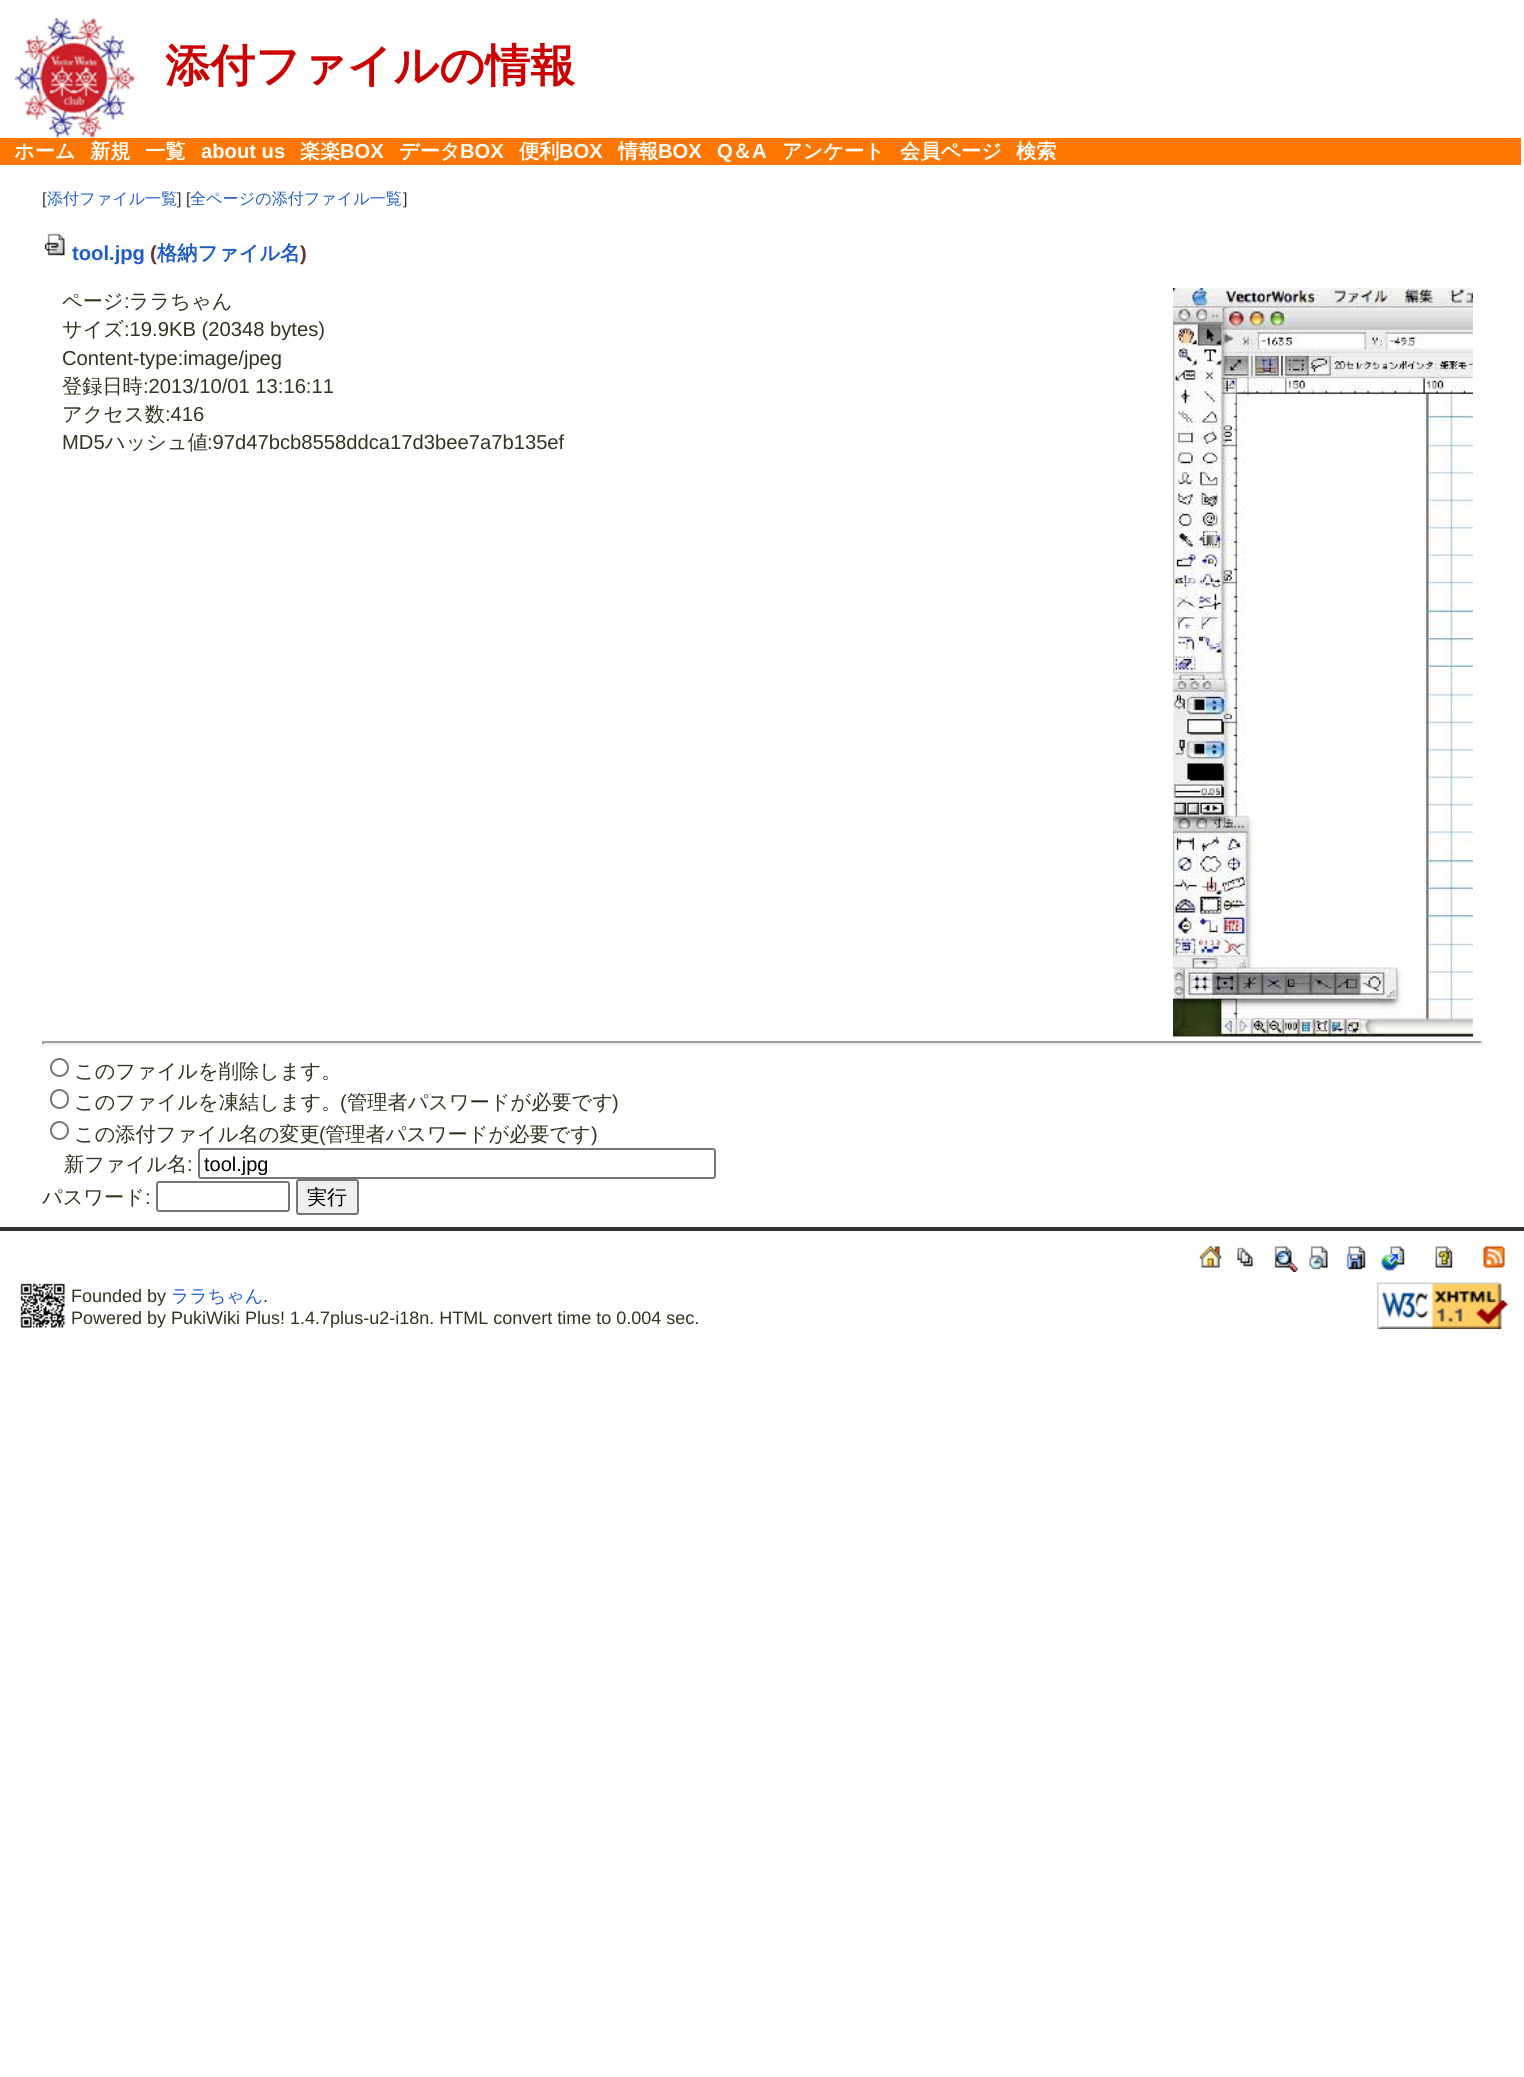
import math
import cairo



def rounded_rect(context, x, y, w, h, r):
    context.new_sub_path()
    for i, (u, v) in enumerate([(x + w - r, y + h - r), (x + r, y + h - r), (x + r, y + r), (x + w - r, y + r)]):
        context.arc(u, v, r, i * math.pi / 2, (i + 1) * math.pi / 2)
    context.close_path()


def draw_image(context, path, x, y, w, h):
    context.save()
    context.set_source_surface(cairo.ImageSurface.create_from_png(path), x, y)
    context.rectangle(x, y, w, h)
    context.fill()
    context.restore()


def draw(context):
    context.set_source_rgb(1, 1, 1)
    context.paint()
    draw_image(context, "images/1.png", 15, 18, 120, 120)
    context.set_source_rgb(1, 119 / 255, 0)
    context.rectangle(0, 138, 1521, 27)
    context.fill()
    draw_image(context, "images/2.png", 44, 233, 21, 23)
    draw_image(context, "images/3.png", 1173, 288, 300, 749)
    context.set_source_rgb(159 / 255, 159 / 255, 159 / 255)
    context.rectangle(42, 1041, 1440, 2)
    context.fill()
    context.set_source_rgb(238 / 255, 238 / 255, 238 / 255)
    context.rectangle(1481, 1041, 2, 3)
    context.fill()
    context.rectangle(42, 1043, 1440, 2)
    context.fill()
    context.set_source_rgb(159 / 255, 159 / 255, 159 / 255)
    context.rectangle(42, 1041, 2, 3)
    context.fill()
    context.arc(59.5, 1067.5, 8.5, 0, 2 * math.pi)
    context.set_source_rgb(118 / 255, 118 / 255, 118 / 255)
    context.stroke()
    rounded_rect(context, 51, 1090, 17, 18, 8.5)
    context.stroke()
    context.arc(59.5, 1130.5, 8.5, 0, 2 * math.pi)
    context.stroke()
    rounded_rect(context, 199, 1149, 516, 29, 2)
    context.stroke()
    rounded_rect(context, 157, 1182, 132, 29, 2)
    context.stroke()
    context.set_source_rgb(239 / 255, 239 / 255, 239 / 255)
    rounded_rect(context, 297, 1180, 61, 34, 2)
    context.fill_preserve()
    context.set_source_rgb(118 / 255, 118 / 255, 118 / 255)
    context.stroke()
    context.set_source_rgb(51 / 255, 51 / 255, 51 / 255)
    context.rectangle(0, 1227, 1524, 4)
    context.fill()
    draw_image(context, "images/4.png", 1199, 1246, 23, 22)
    draw_image(context, "images/5.png", 1237, 1247, 16, 20)
    draw_image(context, "images/6.png", 1274, 1246, 24, 26)
    draw_image(context, "images/7.png", 1309, 1246, 19, 24)
    draw_image(context, "images/8.png", 1346, 1246, 20, 24)
    draw_image(context, "images/9.png", 1381, 1246, 24, 25)
    draw_image(context, "images/10.png", 1435, 1246, 18, 22)
    draw_image(context, "images/11.png", 1483, 1246, 22, 22)
    draw_image(context, "images/12.png", 20, 1283, 45, 45)
    draw_image(context, "images/13.png", 1377, 1282, 131, 47)
    context.select_font_face("WenQuanYi Zen Hei", cairo.FontSlant.NORMAL, cairo.FontWeight.BOLD)
    context.set_font_size(45)
    context.set_source_rgb(204 / 255, 0, 0)
    context.move_to(165, 81)
    context.show_text("添付ファイルの情報")
    context.set_font_size(20.2)
    context.set_source_rgb(1, 1, 1)
    context.move_to(14, 158)
    context.show_text("ホーム")
    context.move_to(90, 158)
    context.show_text("新規")
    context.move_to(145, 158)
    context.show_text("一覧")
    context.select_font_face("Liberation Sans", cairo.FontSlant.NORMAL, cairo.FontWeight.BOLD)
    context.move_to(201, 158)
    context.show_text("about us")
    context.select_font_face("WenQuanYi Zen Hei", cairo.FontSlant.NORMAL, cairo.FontWeight.BOLD)
    context.move_to(300, 158)
    context.show_text("楽楽")
    context.select_font_face("Liberation Sans", cairo.FontSlant.NORMAL, cairo.FontWeight.BOLD)
    context.move_to(340, 158)
    context.show_text("BOX")
    context.select_font_face("WenQuanYi Zen Hei", cairo.FontSlant.NORMAL, cairo.FontWeight.BOLD)
    context.move_to(399, 158)
    context.show_text("データ")
    context.select_font_face("Liberation Sans", cairo.FontSlant.NORMAL, cairo.FontWeight.BOLD)
    context.move_to(460, 158)
    context.show_text("BOX")
    context.select_font_face("WenQuanYi Zen Hei", cairo.FontSlant.NORMAL, cairo.FontWeight.BOLD)
    context.move_to(519, 158)
    context.show_text("便利")
    context.select_font_face("Liberation Sans", cairo.FontSlant.NORMAL, cairo.FontWeight.BOLD)
    context.move_to(559, 158)
    context.show_text("BOX")
    context.select_font_face("WenQuanYi Zen Hei", cairo.FontSlant.NORMAL, cairo.FontWeight.BOLD)
    context.move_to(618, 158)
    context.show_text("情報")
    context.select_font_face("Liberation Sans", cairo.FontSlant.NORMAL, cairo.FontWeight.BOLD)
    context.move_to(658, 158)
    context.show_text("BOX")
    context.move_to(717, 158)
    context.show_text("Q")
    context.select_font_face("WenQuanYi Zen Hei", cairo.FontSlant.NORMAL, cairo.FontWeight.BOLD)
    context.move_to(732, 158)
    context.show_text("＆")
    context.select_font_face("Liberation Sans", cairo.FontSlant.NORMAL, cairo.FontWeight.BOLD)
    context.move_to(752, 158)
    context.show_text("A")
    context.select_font_face("WenQuanYi Zen Hei", cairo.FontSlant.NORMAL, cairo.FontWeight.BOLD)
    context.move_to(782, 158)
    context.show_text("アンケート")
    context.move_to(900, 158)
    context.show_text("会員ページ")
    context.move_to(1016, 158)
    context.show_text("検索")
    context.select_font_face("Liberation Sans")
    context.set_font_size(16.1)
    context.set_source_rgb(51 / 255, 51 / 255, 34 / 255)
    context.move_to(42, 204)
    context.show_text("[")
    context.select_font_face("WenQuanYi Zen Hei Medium")
    context.set_source_rgb(33 / 255, 93 / 255, 198 / 255)
    context.move_to(47, 204)
    context.show_text("添付ファイル一覧")
    context.select_font_face("Liberation Sans")
    context.set_source_rgb(51 / 255, 51 / 255, 34 / 255)
    context.move_to(177, 204)
    context.show_text("] [")
    context.select_font_face("WenQuanYi Zen Hei Medium")
    context.set_source_rgb(33 / 255, 93 / 255, 198 / 255)
    context.move_to(190, 204)
    context.show_text("全ページの添付ファイル一覧")
    context.select_font_face("Liberation Sans")
    context.set_source_rgb(51 / 255, 51 / 255, 34 / 255)
    context.move_to(403, 204)
    context.show_text("]")
    context.select_font_face("Liberation Sans", cairo.FontSlant.NORMAL, cairo.FontWeight.BOLD)
    context.set_font_size(20.2)
    context.set_source_rgb(33 / 255, 93 / 255, 198 / 255)
    context.move_to(72, 260)
    context.show_text("tool.jpg")
    context.set_source_rgb(102 / 255, 51 / 255, 51 / 255)
    context.move_to(150, 260)
    context.show_text("(")
    context.select_font_face("WenQuanYi Zen Hei", cairo.FontSlant.NORMAL, cairo.FontWeight.BOLD)
    context.set_source_rgb(33 / 255, 93 / 255, 198 / 255)
    context.move_to(157, 260)
    context.show_text("格納ファイル名")
    context.select_font_face("Liberation Sans", cairo.FontSlant.NORMAL, cairo.FontWeight.BOLD)
    context.set_source_rgb(102 / 255, 51 / 255, 51 / 255)
    context.move_to(300, 260)
    context.show_text(")")
    context.select_font_face("WenQuanYi Zen Hei Medium")
    context.set_source_rgb(51 / 255, 51 / 255, 34 / 255)
    context.move_to(62, 308)
    context.show_text("ページ")
    context.select_font_face("Liberation Sans")
    context.move_to(124, 308)
    context.show_text(":")
    context.select_font_face("WenQuanYi Zen Hei Medium")
    context.move_to(129, 308)
    context.show_text("ララちゃん")
    context.move_to(62, 336)
    context.show_text("サイズ")
    context.select_font_face("Liberation Sans")
    context.move_to(124, 336)
    context.show_text(":19.9KB (20348 bytes)")
    context.move_to(62, 365)
    context.show_text("Content-type:image/jpeg")
    context.select_font_face("WenQuanYi Zen Hei Medium")
    context.move_to(62, 393)
    context.show_text("登録日時")
    context.select_font_face("Liberation Sans")
    context.move_to(143, 393)
    context.show_text(":2013/10/01 13:16:11")
    context.select_font_face("WenQuanYi Zen Hei Medium")
    context.move_to(62, 421)
    context.show_text("アクセス数")
    context.select_font_face("Liberation Sans")
    context.move_to(165, 421)
    context.show_text(":416")
    context.move_to(62, 449)
    context.show_text("MD5")
    context.select_font_face("WenQuanYi Zen Hei Medium")
    context.move_to(105, 449)
    context.show_text("ハッシュ値")
    context.select_font_face("Liberation Sans")
    context.move_to(207, 449)
    context.show_text(":97d47bcb8558ddca17d3bee7a7b135ef")
    context.select_font_face("WenQuanYi Zen Hei Medium")
    context.move_to(74, 1078)
    context.show_text("このファイルを削除します。")
    context.move_to(74, 1109)
    context.show_text("このファイルを凍結します。")
    context.select_font_face("Liberation Sans")
    context.move_to(340, 1109)
    context.show_text("(")
    context.select_font_face("WenQuanYi Zen Hei Medium")
    context.move_to(347, 1109)
    context.show_text("管理者パスワードが必要です")
    context.select_font_face("Liberation Sans")
    context.move_to(612, 1109)
    context.show_text(")")
    context.select_font_face("WenQuanYi Zen Hei Medium")
    context.move_to(74, 1141)
    context.show_text("この添付ファイル名の変更")
    context.select_font_face("Liberation Sans")
    context.move_to(319, 1141)
    context.show_text("(")
    context.select_font_face("WenQuanYi Zen Hei Medium")
    context.move_to(325, 1141)
    context.show_text("管理者パスワードが必要です")
    context.select_font_face("Liberation Sans")
    context.move_to(591, 1141)
    context.show_text(")")
    context.select_font_face("WenQuanYi Zen Hei Medium")
    context.move_to(64, 1171)
    context.show_text("新ファイル名")
    context.select_font_face("Liberation Sans")
    context.move_to(187, 1171)
    context.show_text(":")
    context.save()
    context.rectangle(204, 1152, 506, 23)
    context.clip()
    context.set_font_size(20)
    context.set_source_rgb(0, 0, 0)
    context.move_to(204, 1171)
    context.show_text("tool.jpg")
    context.restore()
    context.select_font_face("WenQuanYi Zen Hei Medium")
    context.move_to(42, 1204)
    context.show_text("パスワード")
    context.select_font_face("Liberation Sans")
    context.move_to(145, 1204)
    context.show_text(":")
    context.select_font_face("WenQuanYi Zen Hei Medium")
    context.set_font_size(20)
    context.set_source_rgb(0, 0, 0)
    context.move_to(307, 1204)
    context.show_text("実行")
    context.select_font_face("Liberation Sans")
    context.set_font_size(18)
    context.set_source_rgb(51 / 255, 51 / 255, 34 / 255)
    context.move_to(71, 1302)
    context.show_text("Founded by")
    context.select_font_face("WenQuanYi Zen Hei Medium")
    context.set_source_rgb(33 / 255, 93 / 255, 198 / 255)
    context.move_to(171, 1302)
    context.show_text("ララちゃん")
    context.select_font_face("Liberation Sans")
    context.set_source_rgb(51 / 255, 51 / 255, 34 / 255)
    context.move_to(263, 1302)
    context.show_text(".")
    context.move_to(71, 1324)
    context.show_text("Powered by PukiWiki Plus! 1.4.7plus-u2-i18n. HTML convert time to 0.004 sec.")


surface = cairo.ImageSurface(cairo.Format.RGB24, 1524, 2077)
context = cairo.Context(surface)
options = cairo.FontOptions()
options.set_hint_metrics(cairo.HintMetrics.OFF)
options.set_hint_style(cairo.HintStyle.NONE)
context.set_font_options(options)
context.set_miter_limit(4)
draw(context)
surface.write_to_png("out.png")
